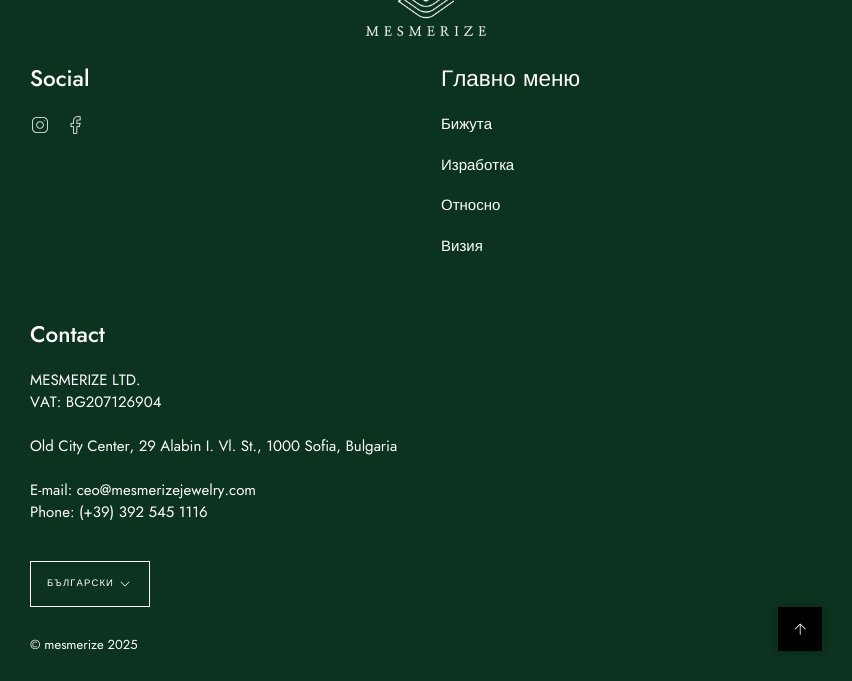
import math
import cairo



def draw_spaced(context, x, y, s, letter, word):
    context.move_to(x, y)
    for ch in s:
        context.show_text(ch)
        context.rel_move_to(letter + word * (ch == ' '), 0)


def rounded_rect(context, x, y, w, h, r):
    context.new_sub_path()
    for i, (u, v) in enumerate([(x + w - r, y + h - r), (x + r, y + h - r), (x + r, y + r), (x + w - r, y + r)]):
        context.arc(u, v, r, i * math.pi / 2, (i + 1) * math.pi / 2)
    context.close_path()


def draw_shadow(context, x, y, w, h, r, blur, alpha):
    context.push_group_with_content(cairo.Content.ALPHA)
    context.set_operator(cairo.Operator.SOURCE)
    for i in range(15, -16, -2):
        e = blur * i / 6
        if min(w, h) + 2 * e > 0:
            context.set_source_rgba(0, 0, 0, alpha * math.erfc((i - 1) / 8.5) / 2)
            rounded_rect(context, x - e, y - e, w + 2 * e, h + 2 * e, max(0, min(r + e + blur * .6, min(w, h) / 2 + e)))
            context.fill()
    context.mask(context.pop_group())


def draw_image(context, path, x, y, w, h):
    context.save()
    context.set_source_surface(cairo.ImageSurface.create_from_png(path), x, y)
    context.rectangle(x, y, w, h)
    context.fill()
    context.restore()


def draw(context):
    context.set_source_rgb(11 / 255, 51 / 255, 31 / 255)
    context.paint()
    draw_image(context, "images/1.png", 366, 0, 120, 36)
    draw_image(context, "images/2.png", 32, 117, 16, 16)
    draw_image(context, "images/3.png", 70, 116, 11, 18)
    context.rectangle(30.5, 561.5, 119, 45)
    context.set_source_rgb(1, 1, 1)
    context.set_line_width(1)
    context.stroke()
    context.new_path()
    context.move_to(121, 582)
    context.line_to(125, 586)
    context.line_to(129, 582)
    context.set_line_width(0.7)
    context.set_line_cap(cairo.LineCap.ROUND)
    context.set_line_join(cairo.LineJoin.ROUND)
    context.stroke()
    context.set_source_rgb(0, 0, 0)
    draw_shadow(context, 778, 607, 44, 44, 0, 5, 0.2)
    context.set_source_rgb(0, 0, 0)
    context.rectangle(778, 607, 44, 44)
    context.fill()
    draw_image(context, "images/4.png", 794, 623, 12, 12)
    context.select_font_face("Jost Medium")
    context.set_font_size(22.5)
    context.set_source_rgb(1, 1, 1)
    context.move_to(30, 86)
    context.show_text("Social")
    context.select_font_face("Liberation Sans")
    draw_spaced(context, 441, 86, "Главно меню", 0, 1)
    context.set_font_size(15)
    context.move_to(441, 129)
    context.show_text("Бижута")
    context.move_to(441, 170)
    context.show_text("Изработка")
    context.move_to(441, 210)
    context.show_text("Относно")
    context.move_to(441, 251)
    context.show_text("Визия")
    context.select_font_face("Jost Medium")
    context.set_font_size(22.5)
    context.move_to(30, 342)
    context.show_text("Contact")
    context.select_font_face("Jost")
    context.set_font_size(15)
    context.move_to(30, 385)
    context.show_text("MESMERIZE LTD.")
    context.move_to(30, 407)
    context.show_text("VAT: BG207126904")
    context.move_to(30, 451)
    context.show_text("Old City Center, 29 Alabin I. Vl. St., 1000 Sofia, Bulgaria")
    context.move_to(30, 495)
    context.show_text("E-mail: ceo@mesmerizejewelry.com")
    context.move_to(30, 517)
    context.show_text("Phone: (+39) 392 545 1116")
    context.select_font_face("Liberation Sans")
    context.set_font_size(9.5)
    draw_spaced(context, 47, 586, "БЪЛГАРСКИ", 1.1, 0)
    context.select_font_face("Jost")
    context.set_font_size(13)
    context.move_to(30, 649)
    context.show_text("© mesmerize 2025")


surface = cairo.ImageSurface(cairo.Format.RGB24, 852, 681)
context = cairo.Context(surface)
options = cairo.FontOptions()
options.set_hint_metrics(cairo.HintMetrics.OFF)
options.set_hint_style(cairo.HintStyle.NONE)
context.set_font_options(options)
context.set_miter_limit(4)
draw(context)
surface.write_to_png("out.png")
